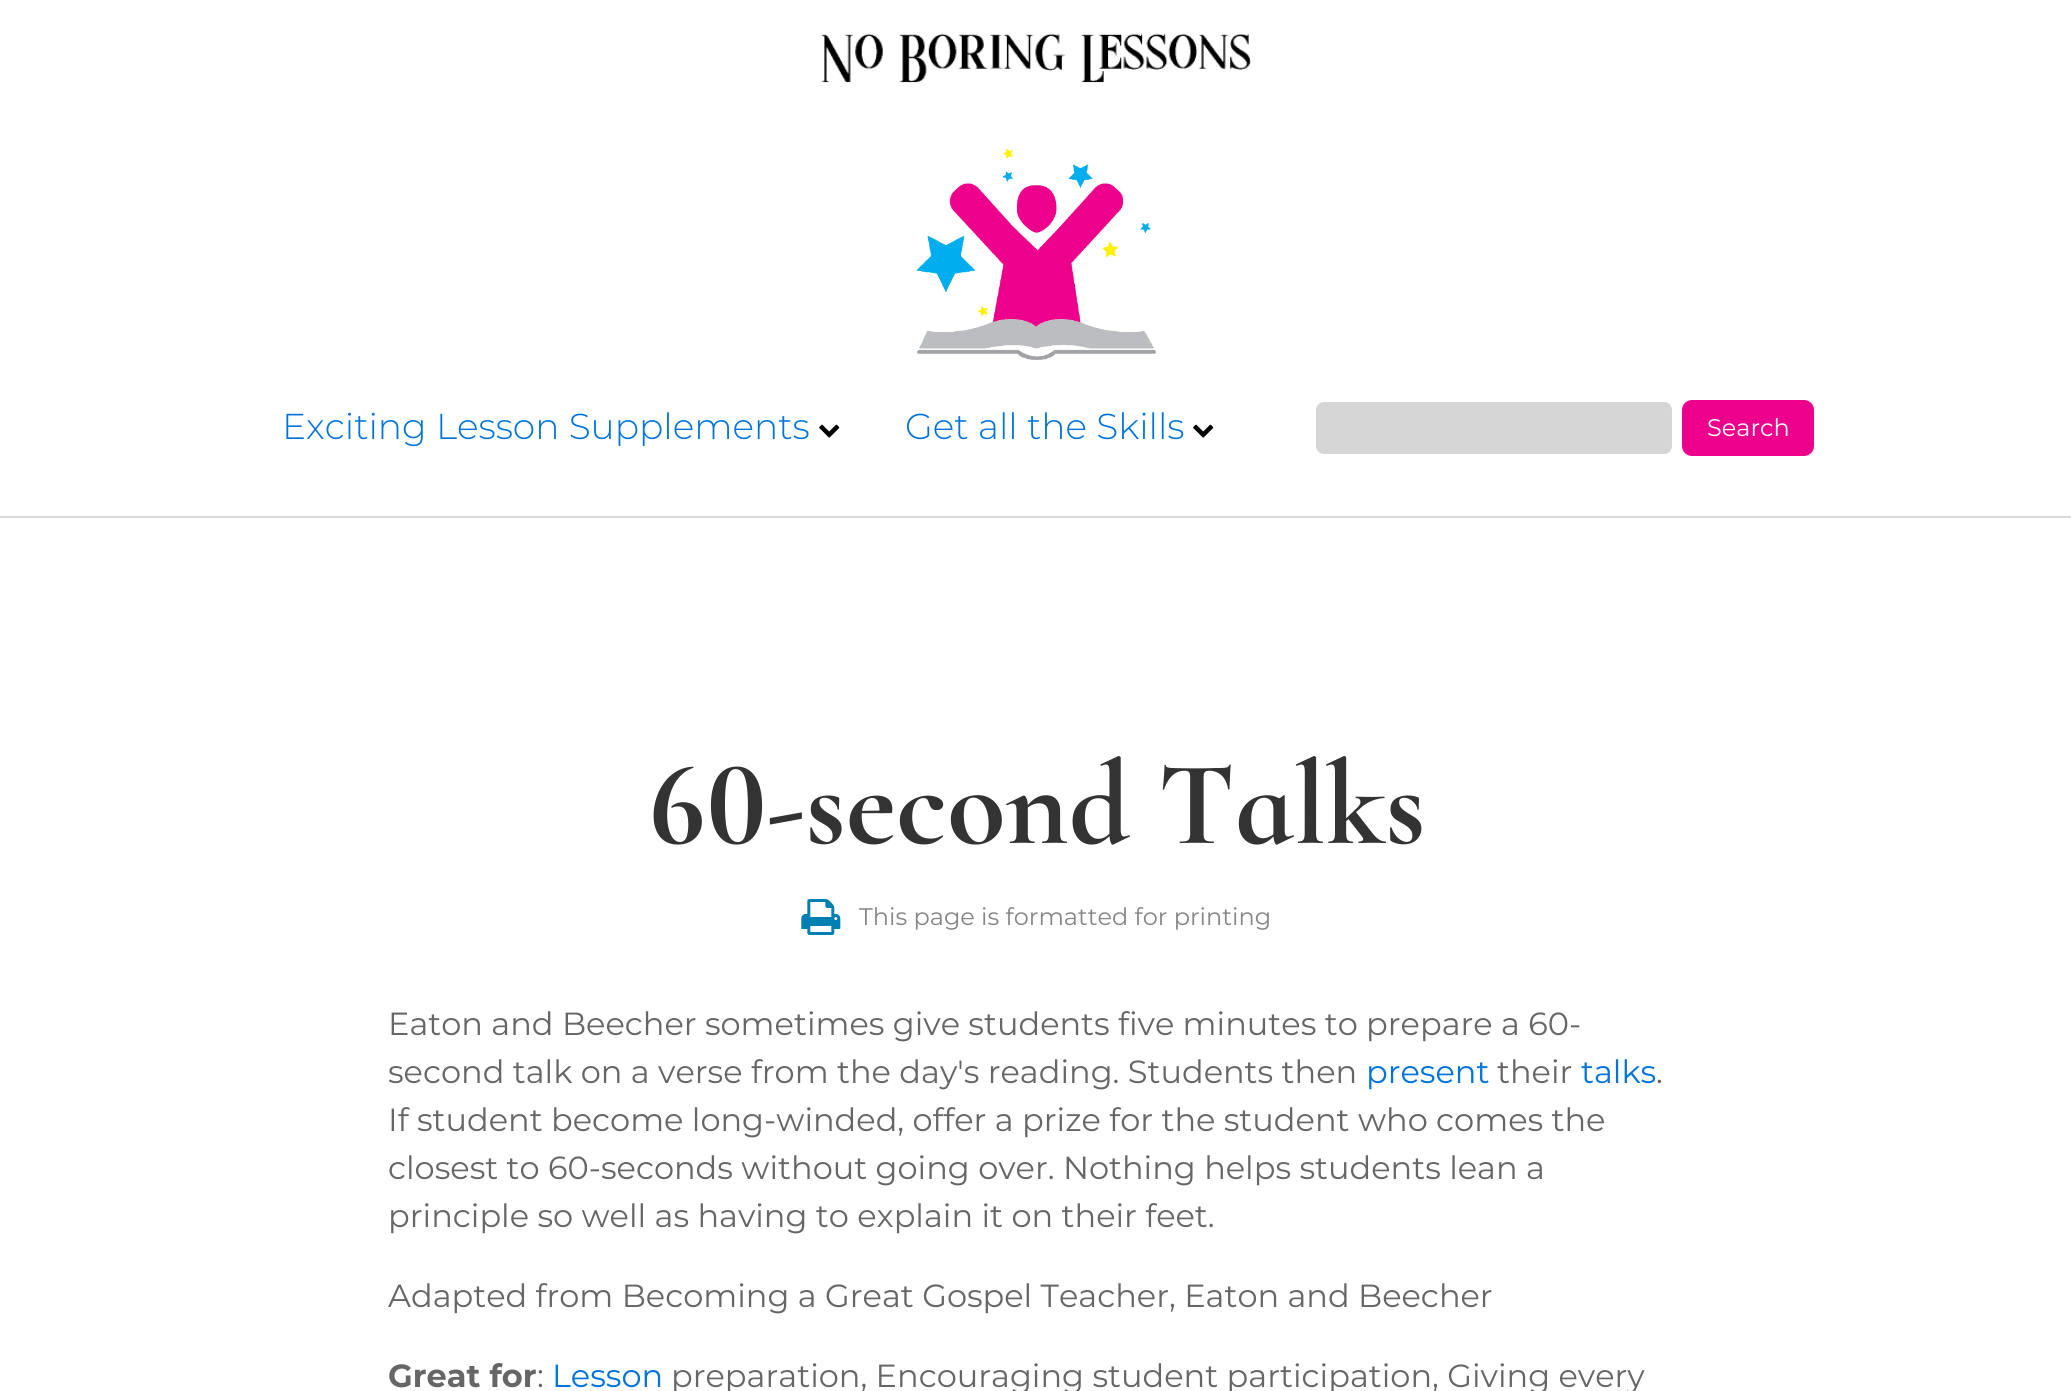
import math
import cairo



def rounded_rect(context, x, y, w, h, r):
    context.new_sub_path()
    for i, (u, v) in enumerate([(x + w - r, y + h - r), (x + r, y + h - r), (x + r, y + r), (x + w - r, y + r)]):
        context.arc(u, v, r, i * math.pi / 2, (i + 1) * math.pi / 2)
    context.close_path()


def draw_image(context, path, x, y, w, h):
    context.save()
    context.set_source_surface(cairo.ImageSurface.create_from_png(path), x, y)
    context.rectangle(x, y, w, h)
    context.fill()
    context.restore()


def draw(context):
    context.set_source_rgb(1, 1, 1)
    context.paint()
    draw_image(context, "images/1.png", 821, 33, 430, 50)
    context.set_source_rgb(216 / 255, 216 / 255, 216 / 255)
    context.rectangle(0, 516, 2071, 2)
    context.fill()
    draw_image(context, "images/2.png", 916, 148, 240, 212)
    draw_image(context, "images/3.png", 819, 424, 21, 14)
    draw_image(context, "images/3.png", 1193, 424, 21, 14)
    context.set_source_rgb(214 / 255, 214 / 255, 214 / 255)
    rounded_rect(context, 1315, 401, 358, 54, 9)
    context.fill_preserve()
    context.set_source_rgb(1, 1, 1)
    context.stroke()
    context.set_source_rgb(236 / 255, 0, 140 / 255)
    rounded_rect(context, 1682, 400, 132, 56, 10)
    context.fill()
    draw_image(context, "images/4.png", 801, 899, 40, 36)
    context.select_font_face("Montserrat Light")
    context.set_font_size(36)
    context.set_source_rgb(0, 116 / 255, 219 / 255)
    context.move_to(282, 439)
    context.show_text("Exciting Lesson Supplements")
    context.move_to(905, 439)
    context.show_text("Get all the Skills")
    context.select_font_face("Montserrat")
    context.set_font_size(24)
    context.set_source_rgb(1, 1, 1)
    context.move_to(1707, 436)
    context.show_text("Search")
    context.select_font_face("Cormorant Infant", cairo.FontSlant.NORMAL, cairo.FontWeight.BOLD)
    context.set_font_size(120)
    context.set_source_rgb(51 / 255, 51 / 255, 51 / 255)
    context.move_to(647, 843)
    context.show_text("60-second Talks")
    context.select_font_face("Montserrat")
    context.set_font_size(24)
    context.set_source_rgb(135 / 255, 132 / 255, 132 / 255)
    context.move_to(859, 925)
    context.show_text("This page is formatted for printing")
    context.set_font_size(32)
    context.set_source_rgb(102 / 255, 102 / 255, 102 / 255)
    context.move_to(388, 1035)
    context.show_text("Eaton and Beecher sometimes give students five minutes to prepare a 60-")
    context.move_to(388, 1083)
    context.show_text("second talk on a verse from the day's reading. Students then")
    context.set_source_rgb(0, 116 / 255, 219 / 255)
    context.move_to(1366, 1083)
    context.show_text("present")
    context.set_source_rgb(102 / 255, 102 / 255, 102 / 255)
    context.move_to(1497, 1083)
    context.show_text("their")
    context.set_source_rgb(0, 116 / 255, 219 / 255)
    context.move_to(1581, 1083)
    context.show_text("talks")
    context.set_source_rgb(102 / 255, 102 / 255, 102 / 255)
    context.move_to(1656, 1083)
    context.show_text(".")
    context.move_to(388, 1131)
    context.show_text("If student become long-winded, offer a prize for the student who comes the")
    context.move_to(388, 1179)
    context.show_text("closest to 60-seconds without going over. Nothing helps students lean a")
    context.move_to(388, 1227)
    context.show_text("principle so well as having to explain it on their feet.")
    context.move_to(388, 1307)
    context.show_text("Adapted from Becoming a Great Gospel Teacher, Eaton and Beecher")
    context.select_font_face("Montserrat", cairo.FontSlant.NORMAL, cairo.FontWeight.BOLD)
    context.move_to(388, 1387)
    context.show_text("Great for")
    context.select_font_face("Montserrat")
    context.move_to(537, 1387)
    context.show_text(":")
    context.set_source_rgb(0, 116 / 255, 219 / 255)
    context.move_to(552, 1387)
    context.show_text("Lesson")
    context.set_source_rgb(102 / 255, 102 / 255, 102 / 255)
    context.move_to(671, 1387)
    context.show_text("preparation, Encouraging student participation, Giving every")


surface = cairo.ImageSurface(cairo.Format.RGB24, 2071, 1391)
context = cairo.Context(surface)
options = cairo.FontOptions()
options.set_hint_metrics(cairo.HintMetrics.OFF)
options.set_hint_style(cairo.HintStyle.NONE)
context.set_font_options(options)
context.set_miter_limit(4)
draw(context)
surface.write_to_png("out.png")
